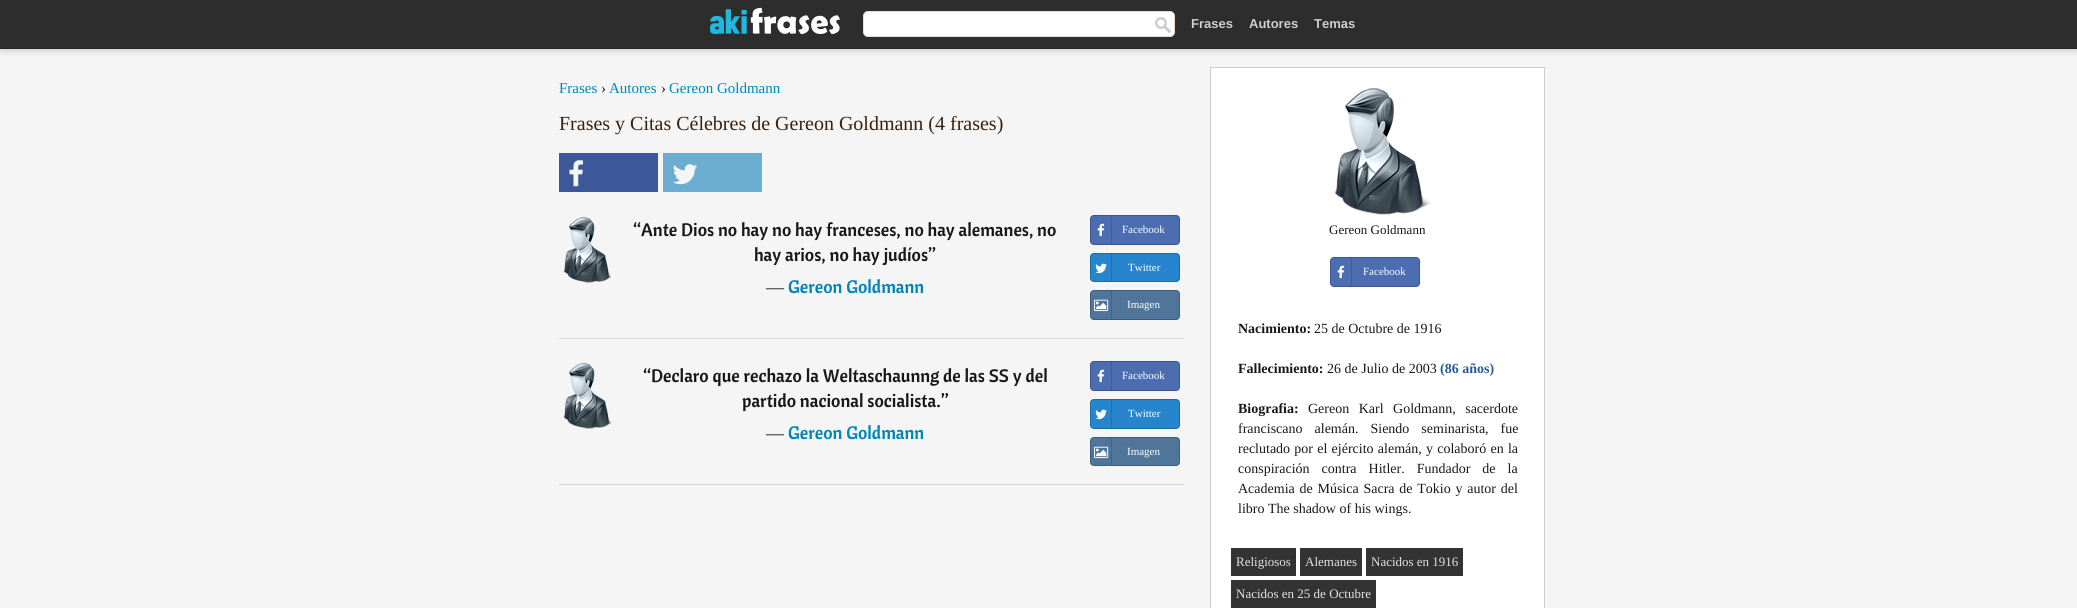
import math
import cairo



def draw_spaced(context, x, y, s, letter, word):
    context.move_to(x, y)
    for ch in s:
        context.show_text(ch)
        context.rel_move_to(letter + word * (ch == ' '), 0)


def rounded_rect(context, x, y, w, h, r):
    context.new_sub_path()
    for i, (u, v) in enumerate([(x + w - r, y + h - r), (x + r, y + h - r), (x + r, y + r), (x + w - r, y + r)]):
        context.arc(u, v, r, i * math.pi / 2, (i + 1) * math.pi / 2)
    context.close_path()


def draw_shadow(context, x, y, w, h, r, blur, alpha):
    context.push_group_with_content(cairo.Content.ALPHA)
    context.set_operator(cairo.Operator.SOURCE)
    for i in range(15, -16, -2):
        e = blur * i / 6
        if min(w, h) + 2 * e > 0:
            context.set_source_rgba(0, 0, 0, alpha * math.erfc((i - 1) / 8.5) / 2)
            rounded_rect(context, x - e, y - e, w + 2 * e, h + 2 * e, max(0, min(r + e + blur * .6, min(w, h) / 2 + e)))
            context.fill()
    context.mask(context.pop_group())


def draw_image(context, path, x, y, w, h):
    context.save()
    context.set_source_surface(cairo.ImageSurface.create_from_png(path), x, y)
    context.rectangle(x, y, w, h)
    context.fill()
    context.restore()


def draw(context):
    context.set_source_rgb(245 / 255, 245 / 255, 245 / 255)
    context.paint()
    context.set_source_rgb(0, 0, 0)
    draw_shadow(context, 0, -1, 2077, 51, 0, 4, 0.2)
    context.set_source_rgb(45 / 255, 45 / 255, 45 / 255)
    context.rectangle(0, 0, 2077, 48)
    context.fill()
    context.set_source_rgb(37 / 255, 37 / 255, 37 / 255)
    context.rectangle(0, 48, 2077, 1)
    context.fill()
    draw_image(context, "images/1.png", 710, 7, 130, 28)
    context.set_source_rgb(1, 1, 1)
    rounded_rect(context, 863.5, 11.5, 311, 25, 4.5)
    context.fill_preserve()
    context.set_source_rgb(227 / 255, 223 / 255, 201 / 255)
    context.set_line_width(1)
    context.stroke()
    draw_image(context, "images/2.png", 1155, 17, 16, 16)
    context.set_source_rgb(60 / 255, 88 / 255, 152 / 255)
    context.rectangle(559, 153, 99, 39)
    context.fill()
    draw_image(context, "images/3.png", 569, 160, 14, 27)
    context.set_source_rgb(106 / 255, 173 / 255, 209 / 255)
    context.rectangle(663, 153, 99, 39)
    context.fill()
    draw_image(context, "images/4.png", 673, 164, 25, 21)
    context.set_source_rgb(215 / 255, 215 / 255, 215 / 255)
    context.rectangle(559, 338, 625, 1)
    context.fill()
    draw_image(context, "images/5.png", 563, 217, 48, 66)
    context.set_source_rgb(76 / 255, 110 / 255, 177 / 255)
    rounded_rect(context, 1090, 215, 90, 30, 4)
    context.fill()
    rounded_rect(context, 1090.5, 215.5, 89, 29, 3.5)
    context.set_source_rgba(0, 0, 0, 0.2)
    context.stroke()
    context.set_source_rgb(65 / 255, 94 / 255, 150 / 255)
    context.rectangle(1111, 216, 1, 28)
    context.fill()
    draw_image(context, "images/6.png", 1097, 223, 8, 14)
    context.set_source_rgb(38 / 255, 133 / 255, 204 / 255)
    rounded_rect(context, 1090, 253, 90, 29, 4)
    context.fill()
    rounded_rect(context, 1090.5, 253.5, 89, 28, 3.5)
    context.set_source_rgba(0, 0, 0, 0.2)
    context.stroke()
    context.set_source_rgb(32 / 255, 113 / 255, 173 / 255)
    context.rectangle(1111, 254, 1, 27)
    context.fill()
    draw_image(context, "images/7.png", 1095, 263, 12, 11)
    context.set_source_rgb(80 / 255, 117 / 255, 154 / 255)
    rounded_rect(context, 1090, 290, 90, 30, 4)
    context.fill()
    rounded_rect(context, 1090.5, 290.5, 89, 29, 3.5)
    context.set_source_rgba(0, 0, 0, 0.2)
    context.stroke()
    context.set_source_rgb(68 / 255, 99 / 255, 131 / 255)
    context.rectangle(1111, 291, 1, 28)
    context.fill()
    draw_image(context, "images/8.png", 1094, 299, 15, 13)
    context.set_source_rgb(215 / 255, 215 / 255, 215 / 255)
    context.rectangle(559, 484, 625, 1)
    context.fill()
    draw_image(context, "images/5.png", 563, 363, 48, 66)
    context.set_source_rgb(76 / 255, 110 / 255, 177 / 255)
    rounded_rect(context, 1090, 361, 90, 30, 4)
    context.fill()
    rounded_rect(context, 1090.5, 361.5, 89, 29, 3.5)
    context.set_source_rgba(0, 0, 0, 0.2)
    context.stroke()
    context.set_source_rgb(65 / 255, 94 / 255, 150 / 255)
    context.rectangle(1111, 362, 1, 28)
    context.fill()
    draw_image(context, "images/6.png", 1097, 369, 8, 14)
    context.set_source_rgb(38 / 255, 133 / 255, 204 / 255)
    rounded_rect(context, 1090, 399, 90, 30, 4)
    context.fill()
    rounded_rect(context, 1090.5, 399.5, 89, 29, 3.5)
    context.set_source_rgba(0, 0, 0, 0.2)
    context.stroke()
    context.set_source_rgb(32 / 255, 113 / 255, 173 / 255)
    context.rectangle(1111, 400, 1, 28)
    context.fill()
    draw_image(context, "images/7.png", 1095, 409, 12, 11)
    context.set_source_rgb(80 / 255, 117 / 255, 154 / 255)
    rounded_rect(context, 1090, 437, 90, 29, 4)
    context.fill()
    rounded_rect(context, 1090.5, 437.5, 89, 28, 3.5)
    context.set_source_rgba(0, 0, 0, 0.2)
    context.stroke()
    context.set_source_rgb(68 / 255, 99 / 255, 131 / 255)
    context.rectangle(1111, 438, 1, 27)
    context.fill()
    draw_image(context, "images/8.png", 1094, 446, 15, 13)
    context.set_source_rgb(1, 1, 1)
    context.rectangle(1210.5, 67.5, 334, 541)
    context.fill_preserve()
    context.set_source_rgb(204 / 255, 204 / 255, 204 / 255)
    context.stroke()
    draw_image(context, "images/9.png", 1335, 88, 97, 127)
    context.set_source_rgb(76 / 255, 110 / 255, 177 / 255)
    rounded_rect(context, 1330, 257, 90, 30, 4)
    context.fill()
    rounded_rect(context, 1330.5, 257.5, 89, 29, 3.5)
    context.set_source_rgba(0, 0, 0, 0.2)
    context.stroke()
    context.set_source_rgb(65 / 255, 94 / 255, 150 / 255)
    context.rectangle(1351, 258, 1, 28)
    context.fill()
    draw_image(context, "images/6.png", 1337, 265, 8, 14)
    context.set_source_rgb(51 / 255, 51 / 255, 51 / 255)
    context.rectangle(1231, 548, 65, 28)
    context.fill()
    context.rectangle(1300, 548, 62, 28)
    context.fill()
    context.rectangle(1366, 548, 97, 28)
    context.fill()
    context.rectangle(1231, 580, 145, 28)
    context.fill()
    context.select_font_face("Liberation Sans", cairo.FontSlant.NORMAL, cairo.FontWeight.BOLD)
    context.set_font_size(13)
    context.set_source_rgb(206 / 255, 206 / 255, 206 / 255)
    context.move_to(1191, 28)
    context.show_text("Frases")
    context.move_to(1249, 28)
    context.show_text("Autores")
    context.move_to(1314, 28)
    context.show_text("Temas")
    context.select_font_face("Liberation Serif")
    context.set_font_size(15)
    context.set_source_rgb(0, 133 / 255, 184 / 255)
    context.move_to(559, 93)
    context.show_text("Frases")
    context.set_source_rgb(24 / 255, 24 / 255, 24 / 255)
    context.move_to(601, 93)
    context.show_text("›")
    context.set_source_rgb(0, 133 / 255, 184 / 255)
    context.move_to(609, 93)
    context.show_text("Autores")
    context.set_source_rgb(24 / 255, 24 / 255, 24 / 255)
    context.move_to(661, 93)
    context.show_text("›")
    context.set_source_rgb(0, 133 / 255, 184 / 255)
    context.move_to(669, 93)
    context.show_text("Gereon Goldmann")
    context.set_font_size(20)
    context.set_source_rgb(56 / 255, 33 / 255, 16 / 255)
    context.move_to(559, 130)
    context.show_text("Frases y Citas Célebres de Gereon Goldmann (4 frases)")
    context.select_font_face("Cantora One")
    context.set_font_size(18)
    context.set_source_rgb(24 / 255, 24 / 255, 24 / 255)
    context.move_to(633, 236)
    context.show_text("“Ante Dios no hay no hay franceses, no hay alemanes, no")
    context.move_to(754, 261)
    context.show_text("hay arios, no hay judíos”")
    context.select_font_face("Liberation Serif")
    context.move_to(766, 293)
    context.show_text("―")
    context.select_font_face("Cantora One")
    context.set_source_rgb(0, 133 / 255, 184 / 255)
    context.move_to(788, 293)
    context.show_text("Gereon Goldmann")
    context.select_font_face("Liberation Serif")
    context.set_font_size(11)
    context.set_source_rgb(1, 1, 1)
    context.move_to(1122, 233)
    context.show_text("Facebook")
    context.move_to(1128, 271)
    context.show_text("Twitter")
    context.move_to(1127, 308)
    context.show_text("Imagen")
    context.select_font_face("Cantora One")
    context.set_font_size(18)
    context.set_source_rgb(24 / 255, 24 / 255, 24 / 255)
    context.move_to(643, 382)
    context.show_text("“Declaro que rechazo la Weltaschaunng de las SS y del")
    context.move_to(742, 407)
    context.show_text("partido nacional socialista.”")
    context.select_font_face("Liberation Serif")
    context.move_to(766, 439)
    context.show_text("―")
    context.select_font_face("Cantora One")
    context.set_source_rgb(0, 133 / 255, 184 / 255)
    context.move_to(788, 439)
    context.show_text("Gereon Goldmann")
    context.select_font_face("Liberation Serif")
    context.set_font_size(11)
    context.set_source_rgb(1, 1, 1)
    context.move_to(1122, 379)
    context.show_text("Facebook")
    context.move_to(1128, 417)
    context.show_text("Twitter")
    context.move_to(1127, 455)
    context.show_text("Imagen")
    context.set_font_size(13)
    context.set_source_rgb(24 / 255, 24 / 255, 24 / 255)
    context.move_to(1329, 234)
    context.show_text("Gereon Goldmann")
    context.set_font_size(11)
    context.set_source_rgb(1, 1, 1)
    context.move_to(1363, 275)
    context.show_text("Facebook")
    context.select_font_face("Liberation Serif", cairo.FontSlant.NORMAL, cairo.FontWeight.BOLD)
    context.set_font_size(14)
    context.set_source_rgb(24 / 255, 24 / 255, 24 / 255)
    context.move_to(1238, 333)
    context.show_text("Nacimiento:")
    context.select_font_face("Liberation Serif")
    context.move_to(1314, 333)
    context.show_text("25 de Octubre de 1916")
    context.select_font_face("Liberation Serif", cairo.FontSlant.NORMAL, cairo.FontWeight.BOLD)
    context.move_to(1238, 373)
    context.show_text("Fallecimiento:")
    context.select_font_face("Liberation Serif")
    context.move_to(1327, 373)
    context.show_text("26 de Julio de 2003")
    context.select_font_face("Liberation Serif", cairo.FontSlant.NORMAL, cairo.FontWeight.BOLD)
    context.set_source_rgb(39 / 255, 90 / 255, 153 / 255)
    context.move_to(1440, 373)
    context.show_text("(86 años)")
    context.set_source_rgb(24 / 255, 24 / 255, 24 / 255)
    context.move_to(1238, 413)
    context.show_text("Biografia:")
    context.select_font_face("Liberation Serif")
    draw_spaced(context, 1308, 413, "Gereon Karl Goldmann, sacerdote", 0, 6)
    draw_spaced(context, 1238, 433, "franciscano alemán. Siendo seminarista, fue", 0, 8.5)
    draw_spaced(context, 1238, 453, "reclutado por el ejército alemán, y colaboró en la", 0, 0.75)
    draw_spaced(context, 1238, 473, "conspiración contra Hitler. Fundador de la", 0, 8.5)
    draw_spaced(context, 1238, 493, "Academia de Música Sacra de Tokio y autor del", 0, 1.25)
    context.move_to(1238, 513)
    context.show_text("libro The shadow of his wings.")
    context.set_font_size(13)
    context.set_source_rgb(226 / 255, 226 / 255, 226 / 255)
    context.move_to(1236, 566)
    context.show_text("Religiosos")
    context.move_to(1305, 566)
    context.show_text("Alemanes")
    context.move_to(1371, 566)
    context.show_text("Nacidos en 1916")
    context.move_to(1236, 598)
    context.show_text("Nacidos en 25 de Octubre")


surface = cairo.ImageSurface(cairo.Format.RGB24, 2077, 608)
context = cairo.Context(surface)
options = cairo.FontOptions()
options.set_hint_metrics(cairo.HintMetrics.OFF)
options.set_hint_style(cairo.HintStyle.NONE)
context.set_font_options(options)
context.set_miter_limit(4)
draw(context)
surface.write_to_png("out.png")
